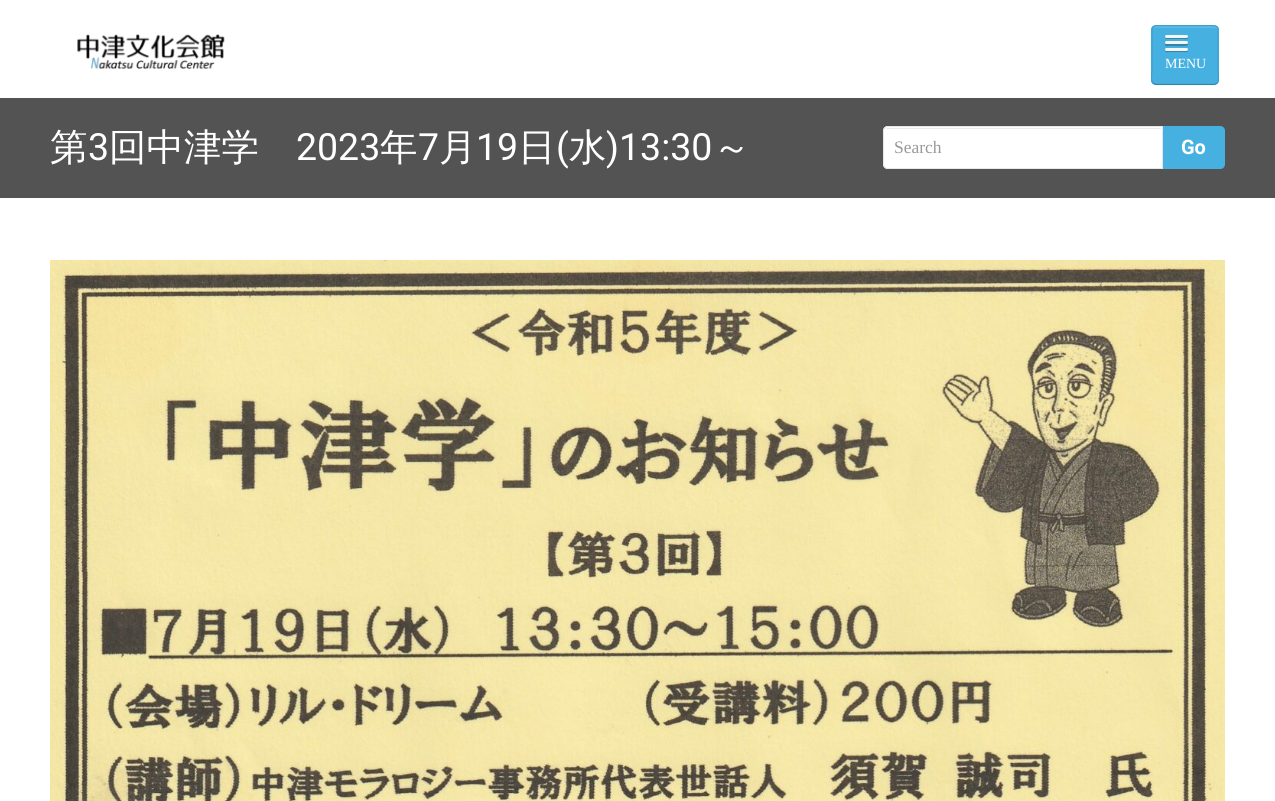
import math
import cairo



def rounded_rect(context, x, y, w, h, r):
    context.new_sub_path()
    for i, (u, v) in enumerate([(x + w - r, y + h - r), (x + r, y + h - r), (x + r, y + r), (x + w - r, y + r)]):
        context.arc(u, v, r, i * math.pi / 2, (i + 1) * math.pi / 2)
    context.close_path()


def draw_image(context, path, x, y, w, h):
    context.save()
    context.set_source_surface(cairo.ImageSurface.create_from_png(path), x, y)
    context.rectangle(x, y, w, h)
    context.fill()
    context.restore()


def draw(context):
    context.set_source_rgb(1, 1, 1)
    context.paint()
    draw_image(context, "images/1.png", 77, 34, 148, 35)
    context.set_source_rgb(70 / 255, 177 / 255, 225 / 255)
    rounded_rect(context, 1151, 25, 68, 60, 5)
    context.fill()
    context.save()
    rounded_rect(context, 1151, 25, 68, 60, 5)
    context.clip()
    context.rectangle(1151, 26, 68, 58)
    context.fill()
    context.restore()
    context.set_source_rgb(89 / 255, 185 / 255, 228 / 255)
    context.new_path()
    context.move_to(1156, 28)
    context.line_to(1214, 28)
    context.curve_to(1216, 28, 1218, 29, 1218, 31)
    context.line_to(1218, 30)
    context.curve_to(1218, 28, 1216, 26, 1214, 26)
    context.line_to(1157, 26)
    context.curve_to(1155, 26, 1154, 27, 1153, 29)
    context.close_path()
    context.fill()
    context.new_path()
    context.move_to(1217, 83)
    context.curve_to(1216, 84, 1215, 84.5, 1214, 84.5)
    context.line_to(1156, 84.5)
    context.curve_to(1155, 84.5, 1154, 84, 1153, 83)
    context.set_source_rgba(0, 0, 0, 0.25)
    context.set_line_width(1.2)
    context.stroke()
    context.new_path()
    context.move_to(1153, 83)
    context.curve_to(1150.5, 80.5, 1152, 73.5, 1152, 71.5)
    context.line_to(1152, 38.5)
    context.curve_to(1152, 24, 1151.5, 25.5, 1166, 25.5)
    context.line_to(1204, 25.5)
    context.curve_to(1218.5, 25.5, 1218, 24, 1218, 38.5)
    context.line_to(1218, 71.5)
    context.curve_to(1218, 73.5, 1219.5, 80.5, 1217, 83)
    context.set_source_rgba(0, 0, 0, 0.1)
    context.stroke()
    context.set_source_rgb(53 / 255, 133 / 255, 169 / 255)
    context.new_path()
    context.move_to(1165, 37)
    context.curve_to(1164, 39.5, 1169, 39, 1170, 39)
    context.line_to(1183, 39)
    context.curve_to(1184, 39, 1187.5, 40, 1188, 38)
    context.curve_to(1188, 37.5, 1188, 36.5, 1187.5, 36.5)
    context.curve_to(1187.5, 37, 1187, 37.5, 1186, 37.5)
    context.line_to(1166, 37.5)
    context.curve_to(1166, 37.5, 1165.5, 37, 1165, 37)
    context.close_path()
    context.fill()
    context.set_source_rgb(245 / 255, 245 / 255, 245 / 255)
    rounded_rect(context, 1165, 35, 23, 3, 1.5)
    context.fill()
    context.set_source_rgb(53 / 255, 133 / 255, 169 / 255)
    context.new_path()
    context.move_to(1165.5, 43.5)
    context.line_to(1165, 45)
    context.curve_to(1165.5, 47, 1169, 46, 1170, 46)
    context.line_to(1173, 46)
    context.curve_to(1175, 46, 1186.5, 46.5, 1187.5, 45.5)
    context.curve_to(1188, 45, 1188, 44, 1187.5, 43)
    context.line_to(1186.5, 43.5)
    context.curve_to(1184.5, 44, 1166, 44, 1165.5, 43.5)
    context.close_path()
    context.fill()
    context.set_source_rgb(245 / 255, 245 / 255, 245 / 255)
    rounded_rect(context, 1165, 41, 23, 3, 1.5)
    context.fill()
    context.set_source_rgb(53 / 255, 133 / 255, 169 / 255)
    context.new_path()
    context.move_to(1165.5, 49.5)
    context.line_to(1165, 51)
    context.curve_to(1165.5, 53, 1169, 52, 1170, 52)
    context.line_to(1183, 52)
    context.curve_to(1184.5, 52, 1188, 53, 1188, 50.5)
    context.line_to(1187.5, 49.5)
    context.line_to(1186.5, 50)
    context.curve_to(1184.5, 50.5, 1166, 50.5, 1165.5, 49.5)
    context.close_path()
    context.fill()
    context.set_source_rgb(245 / 255, 245 / 255, 245 / 255)
    rounded_rect(context, 1165, 48, 23, 3, 1.5)
    context.fill()
    context.set_source_rgb(83 / 255, 83 / 255, 84 / 255)
    context.rectangle(0, 98, 1275, 100)
    context.fill()
    context.set_source_rgb(1, 1, 1)
    context.new_path()
    context.move_to(888, 126)
    context.line_to(1163, 126)
    context.line_to(1163, 169)
    context.line_to(888, 169)
    context.curve_to(885, 169, 883, 167, 883, 164)
    context.line_to(883, 131)
    context.curve_to(883, 128, 885, 126, 888, 126)
    context.close_path()
    context.fill()
    context.set_source_rgb(236 / 255, 236 / 255, 236 / 255)
    context.new_path()
    context.move_to(888, 129)
    context.line_to(1161, 129)
    context.line_to(1161, 128)
    context.line_to(888, 128)
    context.curve_to(886, 128, 885, 129, 884, 130)
    context.curve_to(885, 129, 886, 129, 888, 129)
    context.close_path()
    context.fill()
    context.new_path()
    context.move_to(888, 126.5)
    context.line_to(1162.5, 126.5)
    context.line_to(1162.5, 168.5)
    context.line_to(888, 168.5)
    context.curve_to(885.5, 168.5, 883.5, 166.5, 883.5, 164)
    context.line_to(883.5, 131)
    context.curve_to(883.5, 128.5, 885.5, 126.5, 888, 126.5)
    context.close_path()
    context.set_source_rgb(228 / 255, 232 / 255, 234 / 255)
    context.set_line_width(1)
    context.stroke()
    context.set_source_rgb(70 / 255, 177 / 255, 225 / 255)
    context.new_path()
    context.move_to(1163, 126)
    context.line_to(1220, 126)
    context.curve_to(1223, 126, 1225, 128, 1225, 131)
    context.line_to(1225, 164)
    context.curve_to(1225, 167, 1223, 169, 1220, 169)
    context.line_to(1163, 169)
    context.close_path()
    context.fill()
    draw_image(context, "images/2.png", 50, 260, 1175, 541)
    context.select_font_face("Liberation Serif")
    context.set_font_size(14)
    context.set_source_rgb(1, 1, 1)
    context.move_to(1165, 68)
    context.show_text("MENU")
    context.select_font_face("WenQuanYi Zen Hei Medium")
    context.set_font_size(37.5)
    context.move_to(50, 160)
    context.show_text("第")
    context.select_font_face("Roboto")
    context.move_to(88, 160)
    context.show_text("3")
    context.select_font_face("WenQuanYi Zen Hei Medium")
    context.move_to(109, 160)
    context.show_text("回中津学")
    context.select_font_face("Roboto")
    context.move_to(296, 160)
    context.show_text("2023")
    context.select_font_face("WenQuanYi Zen Hei Medium")
    context.move_to(380, 160)
    context.show_text("年")
    context.select_font_face("Roboto")
    context.move_to(418, 160)
    context.show_text("7")
    context.select_font_face("WenQuanYi Zen Hei Medium")
    context.move_to(439, 160)
    context.show_text("月")
    context.select_font_face("Roboto")
    context.move_to(476, 160)
    context.show_text("19")
    context.select_font_face("WenQuanYi Zen Hei Medium")
    context.move_to(518, 160)
    context.show_text("日")
    context.select_font_face("Roboto")
    context.move_to(556, 160)
    context.show_text("(")
    context.select_font_face("WenQuanYi Zen Hei Medium")
    context.move_to(569, 160)
    context.show_text("水")
    context.select_font_face("Roboto")
    context.move_to(606, 160)
    context.show_text(")13:30")
    context.select_font_face("WenQuanYi Zen Hei Medium")
    context.move_to(713, 160)
    context.show_text("～")
    context.select_font_face("Liberation Serif")
    context.set_font_size(17.5)
    context.set_source_rgb(153 / 255, 153 / 255, 153 / 255)
    context.move_to(894, 153)
    context.show_text("Search")
    context.select_font_face("Roboto", cairo.FontSlant.NORMAL, cairo.FontWeight.BOLD)
    context.set_font_size(20)
    context.set_source_rgb(1, 1, 1)
    context.move_to(1181, 154)
    context.show_text("Go")


surface = cairo.ImageSurface(cairo.Format.RGB24, 1275, 801)
context = cairo.Context(surface)
options = cairo.FontOptions()
options.set_hint_metrics(cairo.HintMetrics.OFF)
options.set_hint_style(cairo.HintStyle.NONE)
context.set_font_options(options)
context.set_miter_limit(4)
draw(context)
surface.write_to_png("out.png")
